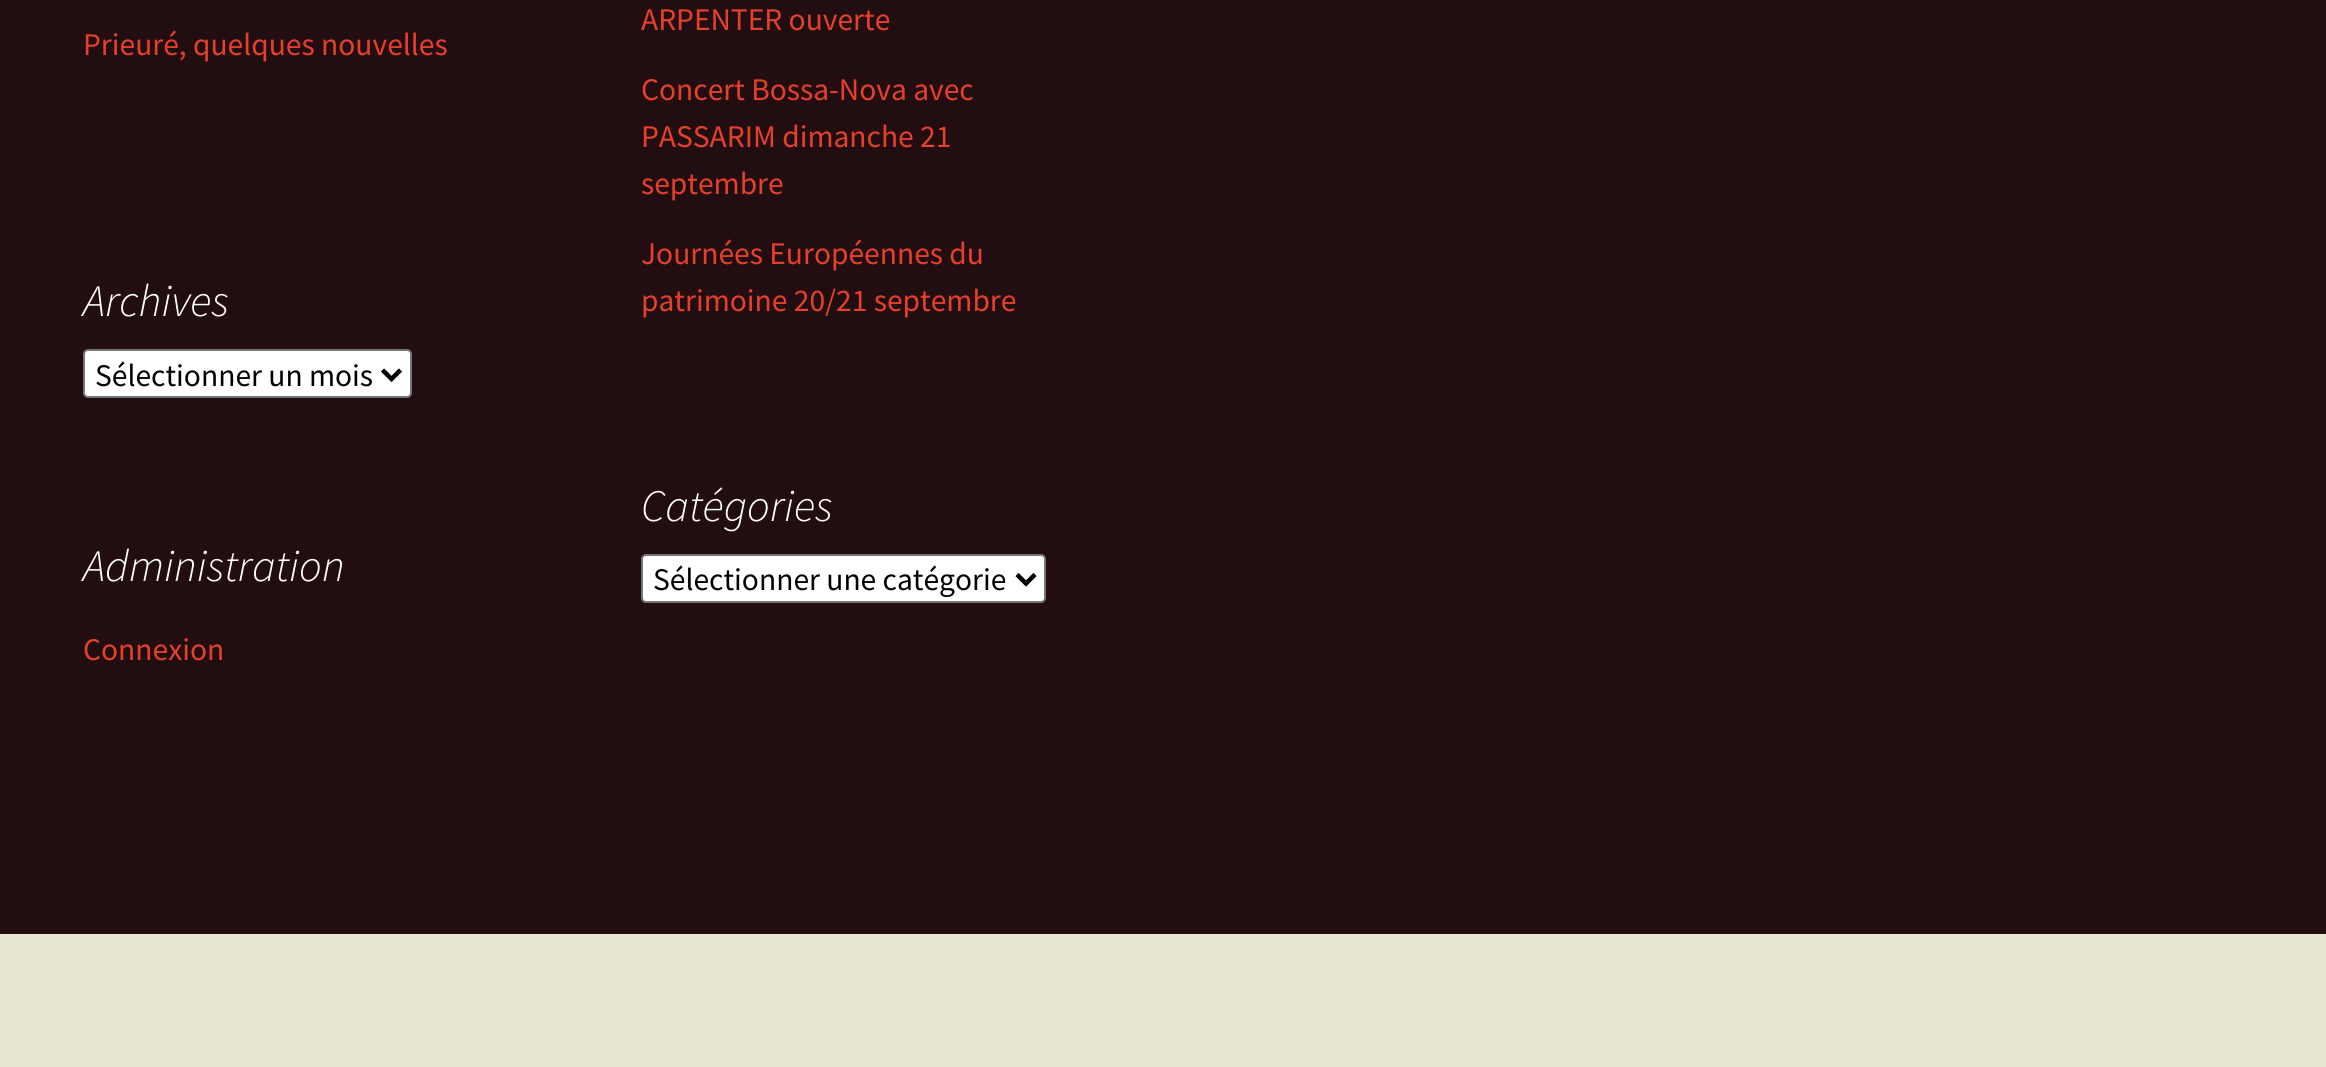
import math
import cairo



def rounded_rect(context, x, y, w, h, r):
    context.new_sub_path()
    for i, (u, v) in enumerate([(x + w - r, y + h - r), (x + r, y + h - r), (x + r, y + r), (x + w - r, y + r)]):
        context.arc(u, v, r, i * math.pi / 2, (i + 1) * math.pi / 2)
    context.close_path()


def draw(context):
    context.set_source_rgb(232 / 255, 229 / 255, 206 / 255)
    context.paint()
    context.set_source_rgb(34 / 255, 14 / 255, 16 / 255)
    context.rectangle(0, 0, 2326, 934)
    context.fill()
    context.set_source_rgb(1, 1, 1)
    rounded_rect(context, 84, 350, 327, 47, 4)
    context.fill_preserve()
    context.set_source_rgb(118 / 255, 118 / 255, 118 / 255)
    context.stroke()
    context.new_path()
    context.move_to(382.5, 370)
    context.line_to(391.5, 379)
    context.line_to(400.5, 370)
    context.set_source_rgb(0, 0, 0)
    context.set_line_width(4.5)
    context.stroke()
    context.set_source_rgb(1, 1, 1)
    rounded_rect(context, 642, 555, 403, 47, 4)
    context.fill_preserve()
    context.set_source_rgb(118 / 255, 118 / 255, 118 / 255)
    context.set_line_width(2)
    context.stroke()
    context.new_path()
    context.move_to(1017, 574.5)
    context.line_to(1026, 583.5)
    context.line_to(1035, 574.5)
    context.set_source_rgb(0, 0, 0)
    context.set_line_width(4.5)
    context.stroke()
    context.select_font_face("Source Sans Pro")
    context.set_font_size(31.5)
    context.set_source_rgb(230 / 255, 64 / 255, 42 / 255)
    context.move_to(83, 55)
    context.show_text("Prieuré, quelques nouvelles")
    context.move_to(641, 30)
    context.show_text("ARPENTER ouverte")
    context.move_to(641, 100)
    context.show_text("Concert Bossa-Nova avec")
    context.move_to(641, 147)
    context.show_text("PASSARIM dimanche 21")
    context.move_to(641, 194)
    context.show_text("septembre")
    context.move_to(641, 264)
    context.show_text("Journées Européennes du")
    context.move_to(641, 311)
    context.show_text("patrimoine 20/21 septembre")
    context.select_font_face("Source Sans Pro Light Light", cairo.FontSlant.ITALIC)
    context.set_font_size(45)
    context.set_source_rgb(1, 1, 1)
    context.move_to(83, 316)
    context.show_text("Archives")
    context.select_font_face("Source Sans Pro")
    context.set_font_size(31.5)
    context.set_source_rgb(0, 0, 0)
    context.move_to(95, 386)
    context.show_text("Sélectionner un mois")
    context.select_font_face("Source Sans Pro Light Light", cairo.FontSlant.ITALIC)
    context.set_font_size(45)
    context.set_source_rgb(1, 1, 1)
    context.move_to(83, 581)
    context.show_text("Administration")
    context.select_font_face("Source Sans Pro")
    context.set_font_size(31.5)
    context.set_source_rgb(230 / 255, 64 / 255, 42 / 255)
    context.move_to(83, 660)
    context.show_text("Connexion")
    context.select_font_face("Source Sans Pro Light Light", cairo.FontSlant.ITALIC)
    context.set_font_size(45)
    context.set_source_rgb(1, 1, 1)
    context.move_to(641, 521)
    context.show_text("Catégories")
    context.select_font_face("Source Sans Pro")
    context.set_font_size(31.5)
    context.set_source_rgb(0, 0, 0)
    context.move_to(653, 590)
    context.show_text("Sélectionner une catégorie")


surface = cairo.ImageSurface(cairo.Format.RGB24, 2326, 1067)
context = cairo.Context(surface)
options = cairo.FontOptions()
options.set_hint_metrics(cairo.HintMetrics.OFF)
options.set_hint_style(cairo.HintStyle.NONE)
context.set_font_options(options)
context.set_miter_limit(4)
draw(context)
surface.write_to_png("out.png")
